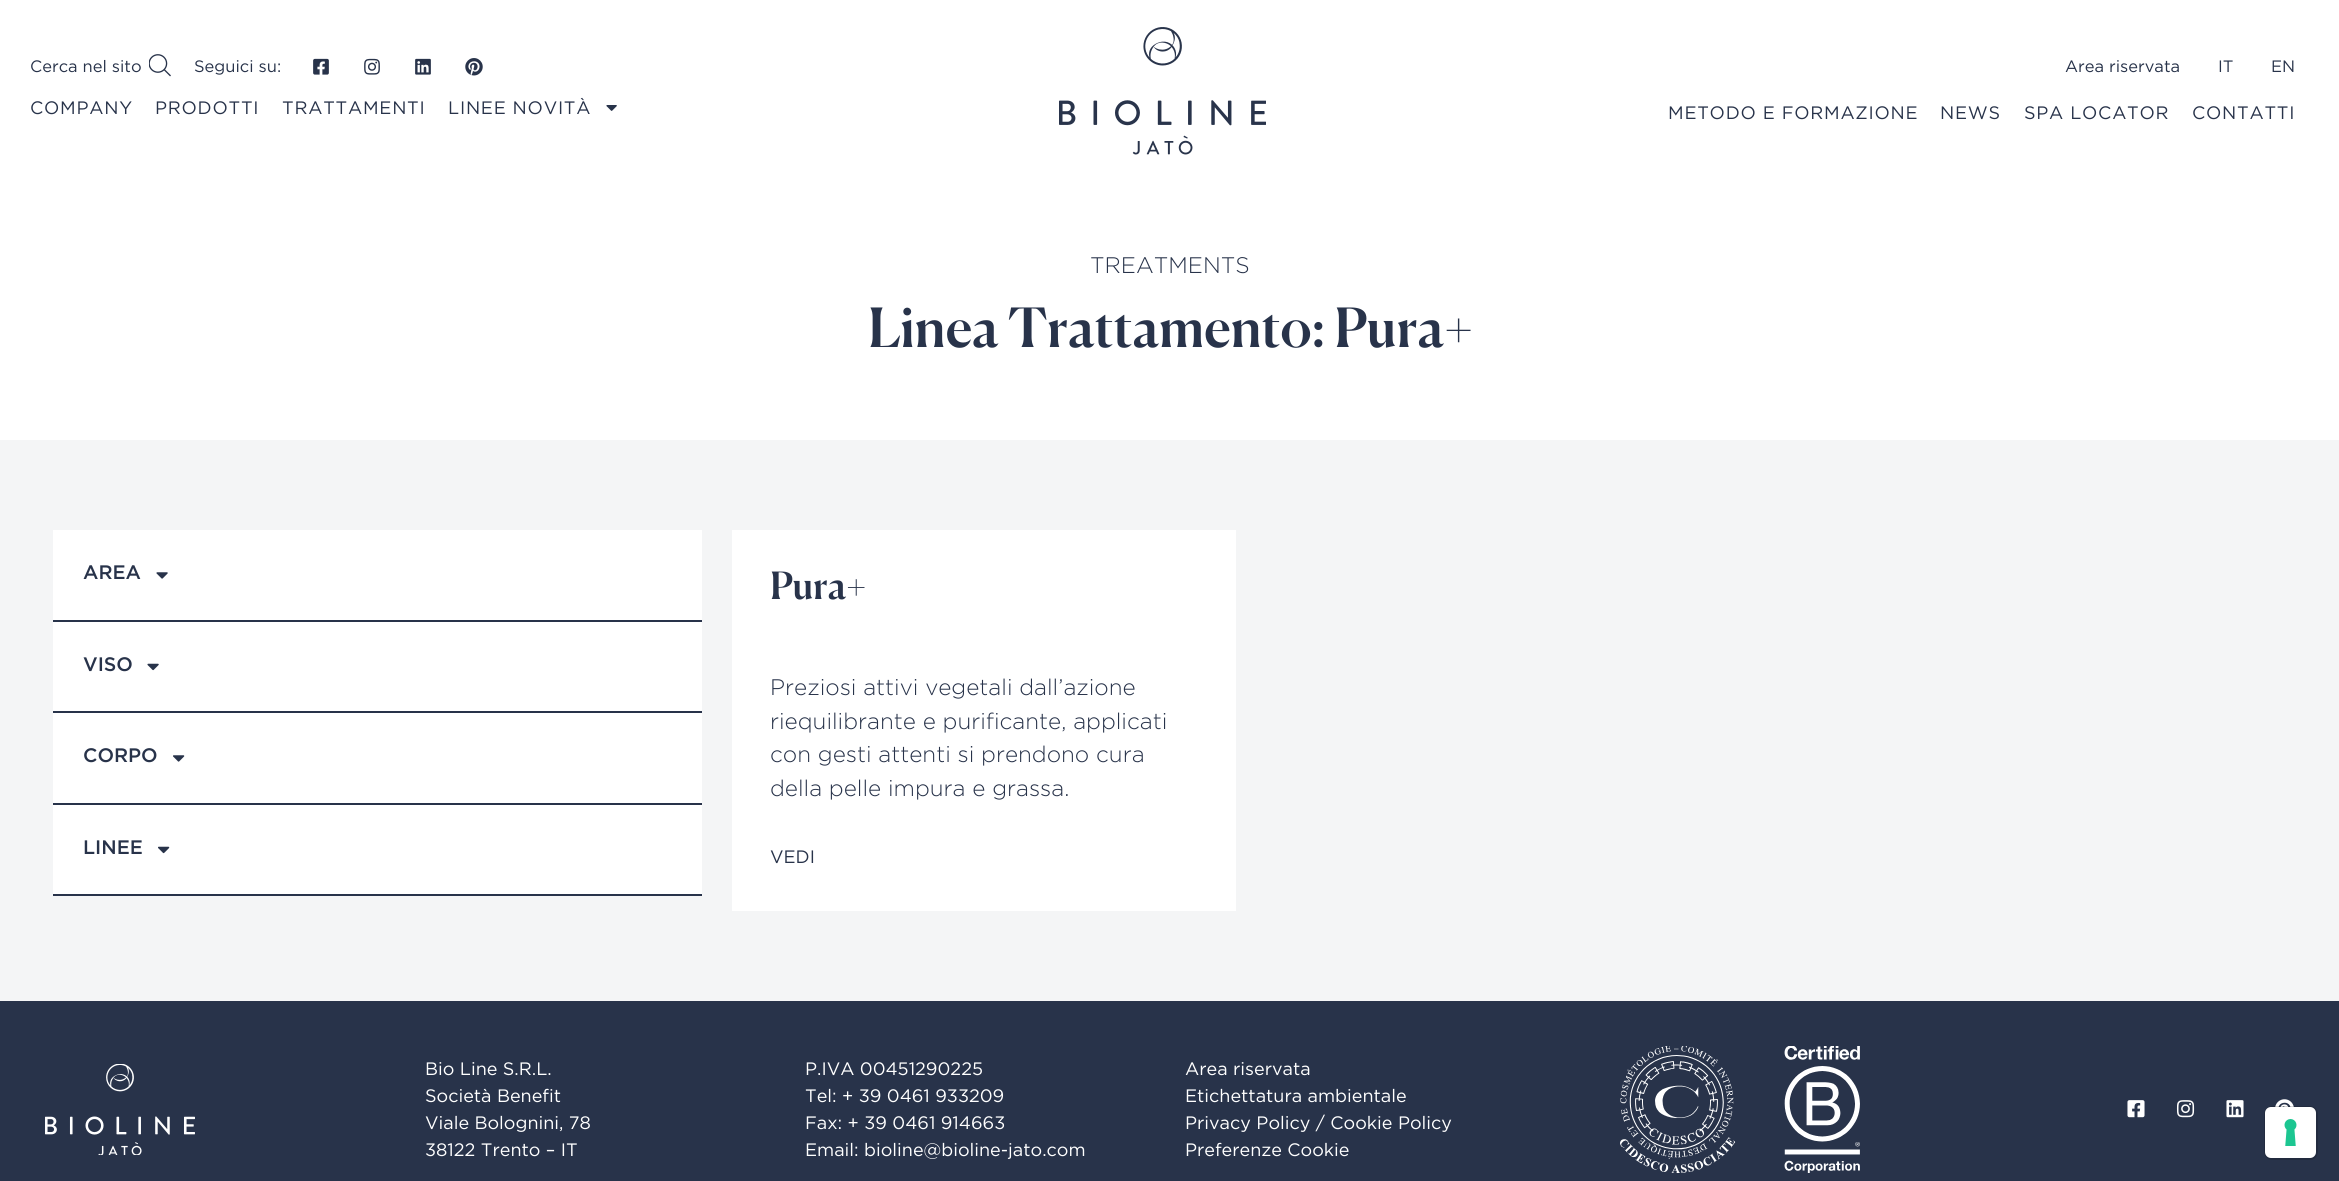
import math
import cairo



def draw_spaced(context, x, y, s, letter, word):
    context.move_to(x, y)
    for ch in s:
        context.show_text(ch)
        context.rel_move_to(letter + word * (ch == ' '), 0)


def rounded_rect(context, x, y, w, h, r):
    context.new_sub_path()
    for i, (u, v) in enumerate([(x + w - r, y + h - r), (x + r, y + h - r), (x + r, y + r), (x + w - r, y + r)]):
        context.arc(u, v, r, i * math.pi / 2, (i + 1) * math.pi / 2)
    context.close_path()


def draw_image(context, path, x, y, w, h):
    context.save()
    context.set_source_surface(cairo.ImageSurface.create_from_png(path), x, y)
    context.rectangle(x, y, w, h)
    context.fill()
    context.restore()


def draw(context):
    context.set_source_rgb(1, 1, 1)
    context.paint()
    draw_image(context, "images/1.png", 149, 54, 22, 23)
    draw_image(context, "images/2.png", 313, 58, 16, 17)
    draw_image(context, "images/3.png", 364, 58, 16, 17)
    draw_image(context, "images/4.png", 415, 58, 16, 17)
    draw_image(context, "images/5.png", 465, 58, 18, 18)
    draw_image(context, "images/6.png", 606, 105, 11, 6)
    draw_image(context, "images/7.png", 1059, 27, 207, 128)
    context.set_source_rgb(244 / 255, 245 / 255, 246 / 255)
    context.rectangle(0, 440, 2339, 561)
    context.fill()
    context.set_source_rgb(1, 1, 1)
    context.rectangle(53, 530, 649, 364)
    context.fill()
    context.set_source_rgb(40 / 255, 51 / 255, 74 / 255)
    context.rectangle(53, 620, 649, 2)
    context.fill()
    draw_image(context, "images/8.png", 156, 572, 12, 7)
    context.rectangle(53, 711, 649, 2)
    context.fill()
    draw_image(context, "images/9.png", 147, 663, 12, 8)
    context.rectangle(53, 803, 649, 2)
    context.fill()
    draw_image(context, "images/10.png", 173, 755, 12, 7)
    context.rectangle(53, 894, 649, 2)
    context.fill()
    draw_image(context, "images/11.png", 158, 846, 12, 8)
    context.set_source_rgb(1, 1, 1)
    context.rectangle(732, 530, 504, 381)
    context.fill()
    context.set_source_rgb(40 / 255, 51 / 255, 74 / 255)
    context.rectangle(0, 1001, 2339, 180)
    context.fill()
    draw_image(context, "images/12.png", 45, 1064, 150, 91)
    draw_image(context, "images/13.png", 1620, 1046, 240, 127)
    draw_image(context, "images/14.png", 2127, 1100, 18, 18)
    draw_image(context, "images/15.png", 2176, 1100, 19, 18)
    draw_image(context, "images/16.png", 2226, 1100, 18, 18)
    draw_image(context, "images/17.png", 2275, 1099, 19, 8)
    rounded_rect(context, 2265, 1107, 52, 52, 7)
    context.set_source_rgba(0, 0, 0, 0.15)
    context.stroke()
    context.set_source_rgb(1, 1, 1)
    rounded_rect(context, 2265, 1107, 51, 51, 6)
    context.fill()
    draw_image(context, "images/18.png", 2284, 1119, 13, 27)
    context.select_font_face("Gotham")
    context.set_font_size(16.5)
    context.set_source_rgb(40 / 255, 51 / 255, 74 / 255)
    context.move_to(30, 72)
    context.show_text("Cerca nel sito")
    context.move_to(194, 72)
    context.show_text("Seguici su:")
    context.set_font_size(18)
    draw_spaced(context, 30, 114, "COMPANY", 0.75, 0)
    draw_spaced(context, 155, 114, "PRODOTTI", 0.75, 0)
    draw_spaced(context, 282, 114, "TRATTAMENTI", 0.75, 0)
    draw_spaced(context, 448, 114, "LINEE NOVITÀ", 0.75, 0)
    context.set_font_size(16.5)
    context.move_to(2065, 72)
    context.show_text("Area riservata")
    context.move_to(2218, 72)
    context.show_text("IT")
    context.move_to(2271, 72)
    context.show_text("EN")
    context.set_font_size(18)
    draw_spaced(context, 1668, 119, "METODO E FORMAZIONE", 0.75, 0)
    draw_spaced(context, 1940, 119, "NEWS", 0.75, 0)
    draw_spaced(context, 2024, 119, "SPA LOCATOR", 0.75, 0)
    draw_spaced(context, 2192, 119, "CONTATTI", 0.75, 0)
    context.select_font_face("Gotham Light")
    context.set_font_size(22.5)
    context.move_to(1090, 273)
    context.show_text("TREATMENTS")
    context.select_font_face("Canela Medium")
    context.set_font_size(54)
    context.move_to(868, 347)
    context.show_text("Linea Trattamento: Pura+")
    context.select_font_face("Gotham Medium")
    context.set_font_size(19.5)
    context.move_to(83, 579)
    context.show_text("AREA")
    context.move_to(83, 671)
    context.show_text("VISO")
    context.move_to(83, 762)
    context.show_text("CORPO")
    context.move_to(83, 854)
    context.show_text("LINEE")
    context.select_font_face("Canela Medium")
    context.set_font_size(37.5)
    context.move_to(770, 599)
    context.show_text("Pura+")
    context.select_font_face("Gotham Light")
    context.set_font_size(22.5)
    context.move_to(770, 695)
    context.show_text("Preziosi attivi vegetali dall’azione")
    context.move_to(770, 729)
    context.show_text("riequilibrante e purificante, applicati")
    context.move_to(770, 762)
    context.show_text("con gesti attenti si prendono cura")
    context.move_to(770, 796)
    context.show_text("della pelle impura e grassa.")
    context.select_font_face("Gotham")
    context.set_font_size(18)
    context.move_to(770, 863)
    context.show_text("VEDI")
    context.set_source_rgb(1, 1, 1)
    context.move_to(425, 1075)
    context.show_text("Bio Line S.R.L.")
    context.move_to(425, 1102)
    context.show_text("Società Benefit")
    context.move_to(425, 1129)
    context.show_text("Viale Bolognini, 78")
    context.move_to(425, 1156)
    context.show_text("38122 Trento – IT")
    context.move_to(805, 1075)
    context.show_text("P.IVA 00451290225")
    context.move_to(805, 1102)
    context.show_text("Tel: + 39 0461 933209")
    context.move_to(805, 1129)
    context.show_text("Fax: + 39 0461 914663")
    context.move_to(805, 1156)
    context.show_text("Email: bioline@bioline-jato.com")
    context.move_to(1185, 1075)
    context.show_text("Area riservata")
    context.move_to(1185, 1102)
    context.show_text("Etichettatura ambientale")
    context.move_to(1185, 1129)
    context.show_text("Privacy Policy / Cookie Policy")
    context.move_to(1185, 1156)
    context.show_text("Preferenze Cookie")


surface = cairo.ImageSurface(cairo.Format.RGB24, 2339, 1181)
context = cairo.Context(surface)
options = cairo.FontOptions()
options.set_hint_metrics(cairo.HintMetrics.OFF)
options.set_hint_style(cairo.HintStyle.NONE)
context.set_font_options(options)
context.set_miter_limit(4)
draw(context)
surface.write_to_png("out.png")
